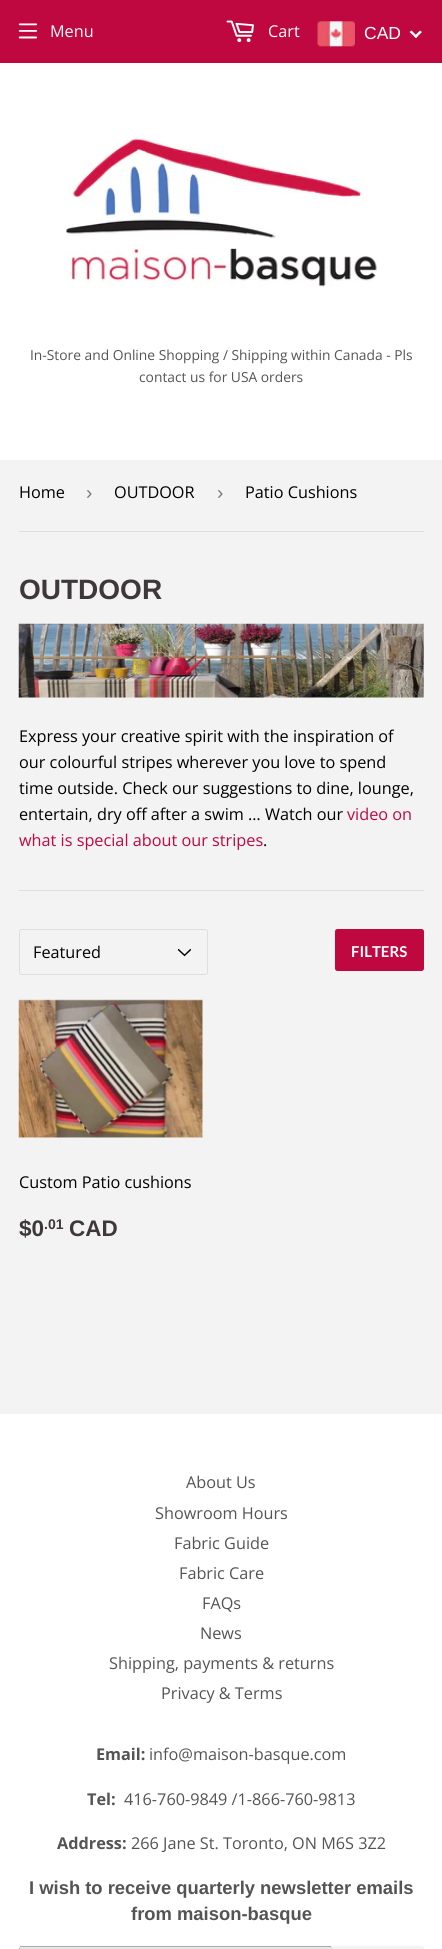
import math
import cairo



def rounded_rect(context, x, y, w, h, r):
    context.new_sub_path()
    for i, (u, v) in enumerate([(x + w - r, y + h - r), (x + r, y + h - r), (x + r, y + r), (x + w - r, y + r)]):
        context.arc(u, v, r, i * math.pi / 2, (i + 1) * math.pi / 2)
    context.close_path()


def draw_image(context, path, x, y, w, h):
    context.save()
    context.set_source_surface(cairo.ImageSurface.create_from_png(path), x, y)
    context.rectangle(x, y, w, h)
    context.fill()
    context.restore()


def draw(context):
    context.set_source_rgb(243 / 255, 243 / 255, 243 / 255)
    context.paint()
    context.set_source_rgb(191 / 255, 8 / 255, 63 / 255)
    context.rectangle(0, 0, 442, 63)
    context.fill()
    draw_image(context, "images/1.png", 18, 23, 20, 16)
    draw_image(context, "images/2.png", 226, 20, 28, 23)
    draw_image(context, "images/3.png", 317, 21, 38, 26)
    context.set_source_rgb(1, 1, 1)
    context.new_path()
    context.move_to(420, 30.5)
    context.line_to(422, 32)
    context.line_to(416, 38)
    context.line_to(414, 36.5)
    context.close_path()
    context.fill()
    context.new_path()
    context.move_to(411.5, 30.5)
    context.line_to(417.5, 36.5)
    context.line_to(416, 38)
    context.line_to(409.5, 32)
    context.close_path()
    context.fill()
    context.rectangle(0, 63, 442, 397)
    context.fill()
    draw_image(context, "images/4.png", 66, 136, 311, 151)
    context.set_source_rgb(222 / 255, 222 / 255, 222 / 255)
    context.rectangle(19, 531, 405, 1)
    context.fill()
    draw_image(context, "images/5.png", 18, 623, 406, 75)
    context.rectangle(19, 890, 405, 1)
    context.fill()
    draw_image(context, "images/6.png", 177, 948, 14, 9)
    rounded_rect(context, 19.5, 929.5, 188, 45, 2)
    context.set_line_width(1)
    context.stroke()
    context.set_source_rgb(191 / 255, 8 / 255, 63 / 255)
    rounded_rect(context, 335, 929, 89, 42, 2.5)
    context.fill()
    draw_image(context, "images/7.png", 18, 999, 185, 139)
    context.set_source_rgb(1, 1, 1)
    context.rectangle(0, 1414, 442, 535)
    context.fill()
    context.set_source_rgb(230 / 255, 230 / 255, 230 / 255)
    rounded_rect(context, 19, 1946, 314, 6, 2.5)
    context.fill()
    context.set_source_rgb(171 / 255, 171 / 255, 171 / 255)
    context.rectangle(20, 1946, 311, 1)
    context.fill()
    context.rectangle(19, 1948, 1, 1)
    context.fill()
    context.set_source_rgb(243 / 255, 243 / 255, 243 / 255)
    context.new_path()
    context.move_to(333, 1946)
    context.line_to(421.5, 1946)
    context.curve_to(423, 1946, 424, 1947, 424, 1948.5)
    context.line_to(424, 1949.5)
    context.curve_to(424, 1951, 423, 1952, 421.5, 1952)
    context.line_to(333, 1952)
    context.close_path()
    context.fill()
    context.select_font_face("Open Sans")
    context.set_font_size(16.25)
    context.set_source_rgb(1, 1, 1)
    context.move_to(50, 37)
    context.show_text("Menu")
    context.move_to(268, 37)
    context.show_text("Cart")
    context.select_font_face("Liberation Sans")
    context.set_font_size(17.5)
    context.move_to(364, 39)
    context.show_text("CAD")
    context.select_font_face("Open Sans")
    context.set_font_size(13.8)
    context.set_source_rgb(84 / 255, 84 / 255, 84 / 255)
    context.move_to(30, 360)
    context.show_text("In-Store and Online Shopping / Shipping within Canada - Pls")
    context.move_to(139, 382)
    context.show_text("contact us for USA orders")
    context.set_font_size(16.25)
    context.set_source_rgb(0, 0, 0)
    context.move_to(19, 498)
    context.show_text("Home")
    context.select_font_face("Liberation Sans")
    context.set_font_size(19)
    context.set_source_rgb(118 / 255, 118 / 255, 118 / 255)
    context.move_to(86, 499)
    context.show_text("›")
    context.select_font_face("Open Sans")
    context.set_font_size(16.25)
    context.set_source_rgb(0, 0, 0)
    context.move_to(114, 498)
    context.show_text("OUTDOOR")
    context.select_font_face("Liberation Sans")
    context.set_font_size(19)
    context.set_source_rgb(118 / 255, 118 / 255, 118 / 255)
    context.move_to(217, 499)
    context.show_text("›")
    context.select_font_face("Open Sans")
    context.set_font_size(16.25)
    context.set_source_rgb(0, 0, 0)
    context.move_to(245, 498)
    context.show_text("Patio Cushions")
    context.select_font_face("Liberation Sans", cairo.FontSlant.NORMAL, cairo.FontWeight.BOLD)
    context.set_font_size(28)
    context.set_source_rgb(62 / 255, 56 / 255, 58 / 255)
    context.move_to(19, 599)
    context.show_text("OUTDOOR")
    context.select_font_face("Open Sans")
    context.set_font_size(16.25)
    context.set_source_rgb(0, 0, 0)
    context.move_to(19, 742)
    context.show_text("Express your creative spirit with the inspiration of")
    context.move_to(19, 768)
    context.show_text("our colourful stripes wherever you love to spend")
    context.move_to(19, 794)
    context.show_text("time outside. Check our suggestions to dine, lounge,")
    context.move_to(19, 820)
    context.show_text("entertain, dry off after a swim … Watch our")
    context.set_source_rgb(191 / 255, 8 / 255, 63 / 255)
    context.move_to(347, 820)
    context.show_text("video on")
    context.move_to(19, 846)
    context.show_text("what is special about our stripes")
    context.set_source_rgb(0, 0, 0)
    context.move_to(263, 846)
    context.show_text(".")
    context.move_to(33, 958)
    context.show_text("Featured")
    context.select_font_face("Lato", cairo.FontSlant.NORMAL, cairo.FontWeight.BOLD)
    context.set_font_size(15)
    context.set_source_rgb(1, 1, 1)
    context.move_to(351, 957)
    context.show_text("FILTERS")
    context.select_font_face("Open Sans")
    context.set_font_size(16.25)
    context.set_source_rgb(0, 0, 0)
    context.move_to(19, 1188)
    context.show_text("Custom Patio cushions")
    context.select_font_face("Liberation Sans", cairo.FontSlant.NORMAL, cairo.FontWeight.BOLD)
    context.set_font_size(22.5)
    context.set_source_rgb(62 / 255, 56 / 255, 58 / 255)
    context.move_to(19, 1236)
    context.show_text("$0")
    context.set_font_size(14)
    context.move_to(44, 1229)
    context.show_text(".01")
    context.set_font_size(22.5)
    context.move_to(69, 1236)
    context.show_text("CAD")
    context.select_font_face("Open Sans")
    context.set_font_size(16.25)
    context.set_source_rgb(84 / 255, 84 / 255, 84 / 255)
    context.move_to(186, 1488)
    context.show_text("About Us")
    context.move_to(155, 1519)
    context.show_text("Showroom Hours")
    context.move_to(174, 1549)
    context.show_text("Fabric Guide")
    context.move_to(179, 1579)
    context.show_text("Fabric Care")
    context.move_to(202, 1609)
    context.show_text("FAQs")
    context.move_to(200, 1639)
    context.show_text("News")
    context.move_to(109, 1669)
    context.show_text("Shipping, payments & returns")
    context.move_to(161, 1699)
    context.show_text("Privacy & Terms")
    context.select_font_face("Open Sans", cairo.FontSlant.NORMAL, cairo.FontWeight.BOLD)
    context.move_to(96, 1760)
    context.show_text("Email:")
    context.select_font_face("Open Sans")
    context.move_to(149, 1760)
    context.show_text("info@maison-basque.com")
    context.select_font_face("Open Sans", cairo.FontSlant.NORMAL, cairo.FontWeight.BOLD)
    context.move_to(87, 1805)
    context.show_text("Tel:")
    context.select_font_face("Open Sans")
    context.move_to(124, 1805)
    context.show_text("416-760-9849 /1-866-760-9813")
    context.select_font_face("Open Sans", cairo.FontSlant.NORMAL, cairo.FontWeight.BOLD)
    context.move_to(57, 1849)
    context.show_text("Address:")
    context.select_font_face("Open Sans")
    context.move_to(131, 1849)
    context.show_text("266 Jane St. Toronto, ON M6S 3Z2")
    context.select_font_face("Liberation Sans", cairo.FontSlant.NORMAL, cairo.FontWeight.BOLD)
    context.set_font_size(18.4)
    context.move_to(29, 1894)
    context.show_text("I wish to receive quarterly newsletter emails")
    context.move_to(131, 1920)
    context.show_text("from maison-basque")


surface = cairo.ImageSurface(cairo.Format.RGB24, 442, 1949)
context = cairo.Context(surface)
options = cairo.FontOptions()
options.set_hint_metrics(cairo.HintMetrics.OFF)
options.set_hint_style(cairo.HintStyle.NONE)
context.set_font_options(options)
context.set_miter_limit(4)
draw(context)
surface.write_to_png("out.png")
